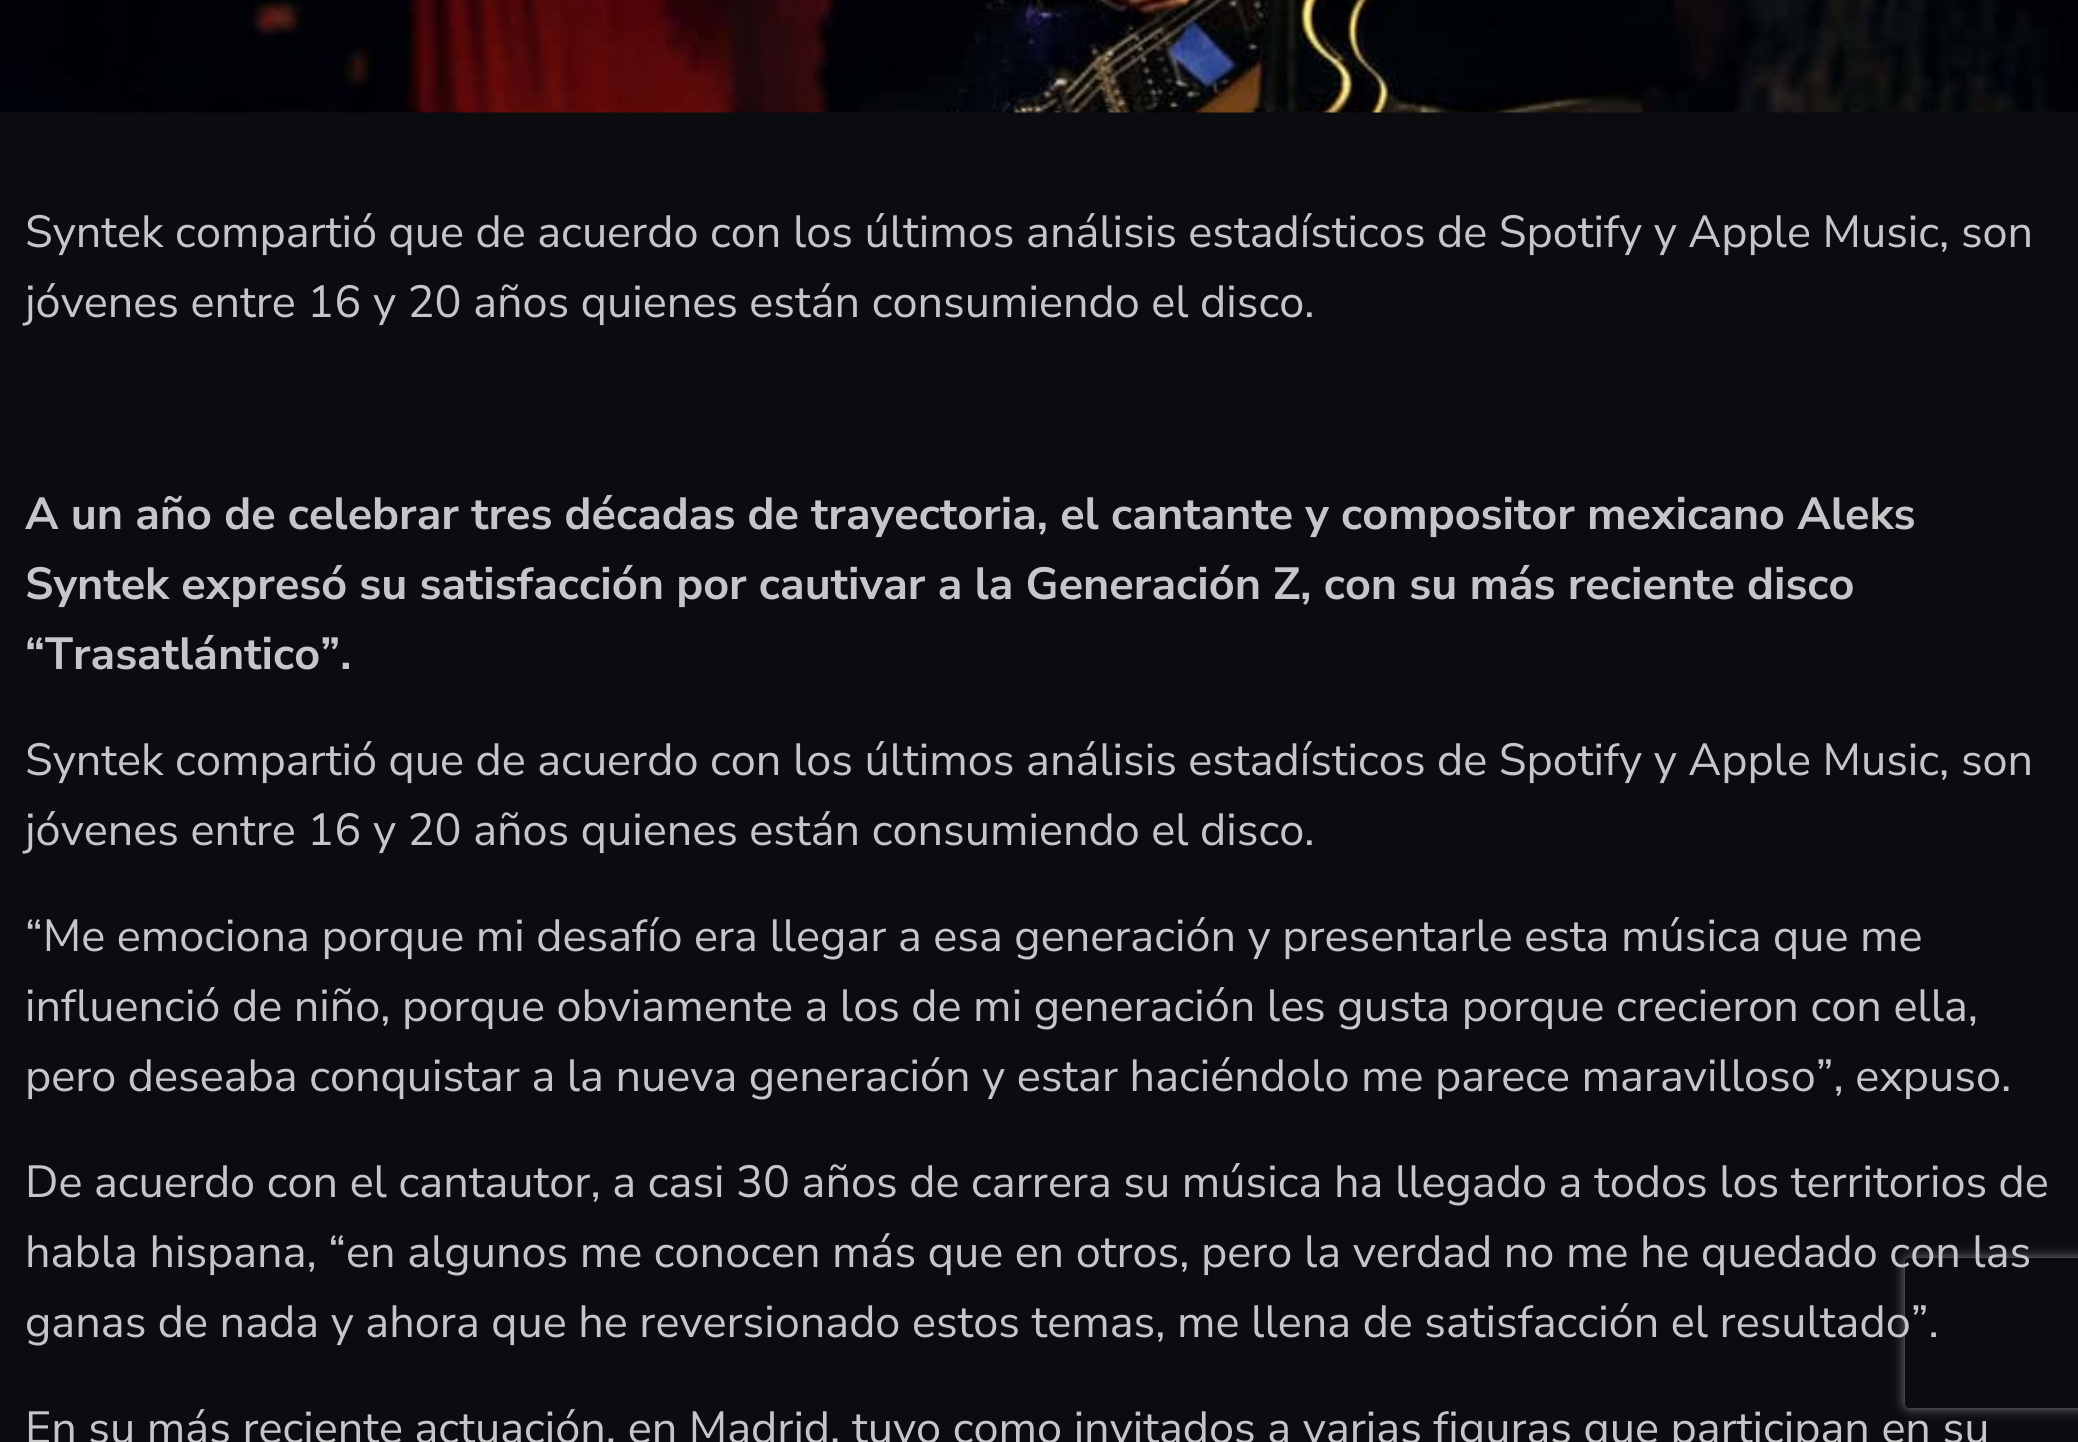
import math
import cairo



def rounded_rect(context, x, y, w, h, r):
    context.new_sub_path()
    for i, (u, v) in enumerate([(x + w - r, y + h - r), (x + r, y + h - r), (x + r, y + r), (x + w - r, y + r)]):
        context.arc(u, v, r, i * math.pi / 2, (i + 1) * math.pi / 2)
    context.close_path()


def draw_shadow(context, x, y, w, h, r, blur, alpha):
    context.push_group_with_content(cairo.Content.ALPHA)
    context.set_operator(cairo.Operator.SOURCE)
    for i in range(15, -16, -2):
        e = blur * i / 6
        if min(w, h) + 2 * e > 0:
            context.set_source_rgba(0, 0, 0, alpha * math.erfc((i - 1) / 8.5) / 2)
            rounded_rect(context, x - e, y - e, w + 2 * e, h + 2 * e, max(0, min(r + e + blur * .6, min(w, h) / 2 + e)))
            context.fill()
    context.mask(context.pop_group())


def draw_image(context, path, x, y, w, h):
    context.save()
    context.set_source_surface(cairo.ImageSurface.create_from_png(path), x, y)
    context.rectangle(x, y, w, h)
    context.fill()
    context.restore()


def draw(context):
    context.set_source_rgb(11 / 255, 12 / 255, 16 / 255)
    context.paint()
    draw_image(context, "images/1.png", 0, 0, 2078, 113)
    context.save()
    context.set_fill_rule(cairo.FillRule.EVEN_ODD)
    context.new_path()
    context.move_to(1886, 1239)
    context.line_to(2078, 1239)
    context.line_to(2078, 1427)
    context.line_to(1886, 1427)
    context.close_path()
    context.move_to(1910, 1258)
    context.line_to(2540, 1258)
    context.curve_to(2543, 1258, 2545, 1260, 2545, 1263)
    context.line_to(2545, 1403)
    context.curve_to(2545, 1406, 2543, 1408, 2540, 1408)
    context.line_to(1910, 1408)
    context.curve_to(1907, 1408, 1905, 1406, 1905, 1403)
    context.line_to(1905, 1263)
    context.curve_to(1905, 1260, 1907, 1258, 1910, 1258)
    context.close_path()
    context.clip()
    context.set_source_rgb(128 / 255, 128 / 255, 128 / 255)
    draw_shadow(context, 1905, 1258, 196, 150, 5, 6, 1)
    context.restore()
    context.select_font_face("Nunito Sans")
    context.set_font_size(45)
    context.set_source_rgb(197 / 255, 198 / 255, 200 / 255)
    context.move_to(25, 247)
    context.show_text("Syntek compartió que de acuerdo con los últimos análisis estadísticos de Spotify y Apple Music, son")
    context.move_to(25, 317)
    context.show_text("jóvenes entre 16 y 20 años quienes están consumiendo el disco.")
    context.select_font_face("Nunito Sans", cairo.FontSlant.NORMAL, cairo.FontWeight.BOLD)
    context.move_to(25, 529)
    context.show_text("A un año de celebrar tres décadas de trayectoria, el cantante y compositor mexicano Aleks")
    context.move_to(25, 599)
    context.show_text("Syntek expresó su satisfacción por cautivar a la Generación Z, con su más reciente disco")
    context.move_to(25, 669)
    context.show_text("“Trasatlántico”.")
    context.select_font_face("Nunito Sans")
    context.move_to(25, 775)
    context.show_text("Syntek compartió que de acuerdo con los últimos análisis estadísticos de Spotify y Apple Music, son")
    context.move_to(25, 845)
    context.show_text("jóvenes entre 16 y 20 años quienes están consumiendo el disco.")
    context.move_to(25, 951)
    context.show_text("“Me emociona porque mi desafío era llegar a esa generación y presentarle esta música que me")
    context.move_to(25, 1021)
    context.show_text("influenció de niño, porque obviamente a los de mi generación les gusta porque crecieron con ella,")
    context.move_to(25, 1091)
    context.show_text("pero deseaba conquistar a la nueva generación y estar haciéndolo me parece maravilloso”, expuso.")
    context.move_to(25, 1197)
    context.show_text("De acuerdo con el cantautor, a casi 30 años de carrera su música ha llegado a todos los territorios de")
    context.move_to(25, 1267)
    context.show_text("habla hispana, “en algunos me conocen más que en otros, pero la verdad no me he quedado con las")
    context.move_to(25, 1337)
    context.show_text("ganas de nada y ahora que he reversionado estos temas, me llena de satisfacción el resultado”.")
    context.move_to(25, 1443)
    context.show_text("En su más reciente actuación, en Madrid, tuvo como invitados a varias figuras que participan en su")


surface = cairo.ImageSurface(cairo.Format.RGB24, 2078, 1442)
context = cairo.Context(surface)
options = cairo.FontOptions()
options.set_hint_metrics(cairo.HintMetrics.OFF)
options.set_hint_style(cairo.HintStyle.NONE)
context.set_font_options(options)
context.set_miter_limit(4)
draw(context)
surface.write_to_png("out.png")
